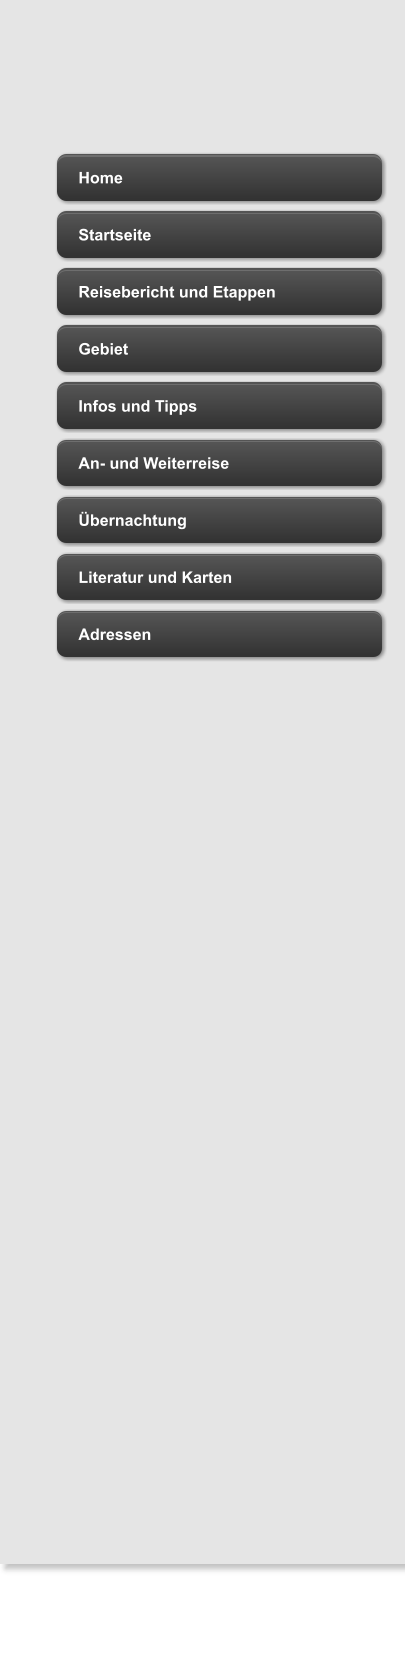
import math
import cairo



def rounded_rect(context, x, y, w, h, r):
    context.new_sub_path()
    for i, (u, v) in enumerate([(x + w - r, y + h - r), (x + r, y + h - r), (x + r, y + r), (x + w - r, y + r)]):
        context.arc(u, v, r, i * math.pi / 2, (i + 1) * math.pi / 2)
    context.close_path()


def draw_shadow(context, x, y, w, h, r, blur, alpha):
    context.push_group_with_content(cairo.Content.ALPHA)
    context.set_operator(cairo.Operator.SOURCE)
    for i in range(15, -16, -2):
        e = blur * i / 6
        if min(w, h) + 2 * e > 0:
            context.set_source_rgba(0, 0, 0, alpha * math.erfc((i - 1) / 8.5) / 2)
            rounded_rect(context, x - e, y - e, w + 2 * e, h + 2 * e, max(0, min(r + e + blur * .6, min(w, h) / 2 + e)))
            context.fill()
    context.mask(context.pop_group())


def draw_image(context, path, x, y, w, h):
    context.save()
    context.set_source_surface(cairo.ImageSurface.create_from_png(path), x, y)
    context.rectangle(x, y, w, h)
    context.fill()
    context.restore()


def draw(context):
    context.set_source_rgb(1, 1, 1)
    context.paint()
    context.set_source_rgb(0, 0, 0)
    draw_shadow(context, 5, 5, 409, 1564, 0, 3, 0.25)
    context.set_source_rgb(229 / 255, 229 / 255, 229 / 255)
    context.rectangle(0, 0, 405, 1564)
    context.fill()
    draw_image(context, "images/1.png", 55, 152, 332, 53)
    draw_image(context, "images/2.png", 55, 209, 332, 53)
    draw_image(context, "images/3.png", 55, 267, 332, 52)
    draw_image(context, "images/4.png", 55, 324, 332, 52)
    draw_image(context, "images/5.png", 55, 381, 332, 52)
    draw_image(context, "images/6.png", 55, 438, 332, 52)
    draw_image(context, "images/7.png", 55, 495, 332, 52)
    draw_image(context, "images/8.png", 55, 552, 332, 52)
    draw_image(context, "images/9.png", 55, 609, 332, 53)


surface = cairo.ImageSurface(cairo.Format.RGB24, 405, 1657)
context = cairo.Context(surface)
options = cairo.FontOptions()
options.set_hint_metrics(cairo.HintMetrics.OFF)
options.set_hint_style(cairo.HintStyle.NONE)
context.set_font_options(options)
context.set_miter_limit(4)
draw(context)
surface.write_to_png("out.png")
